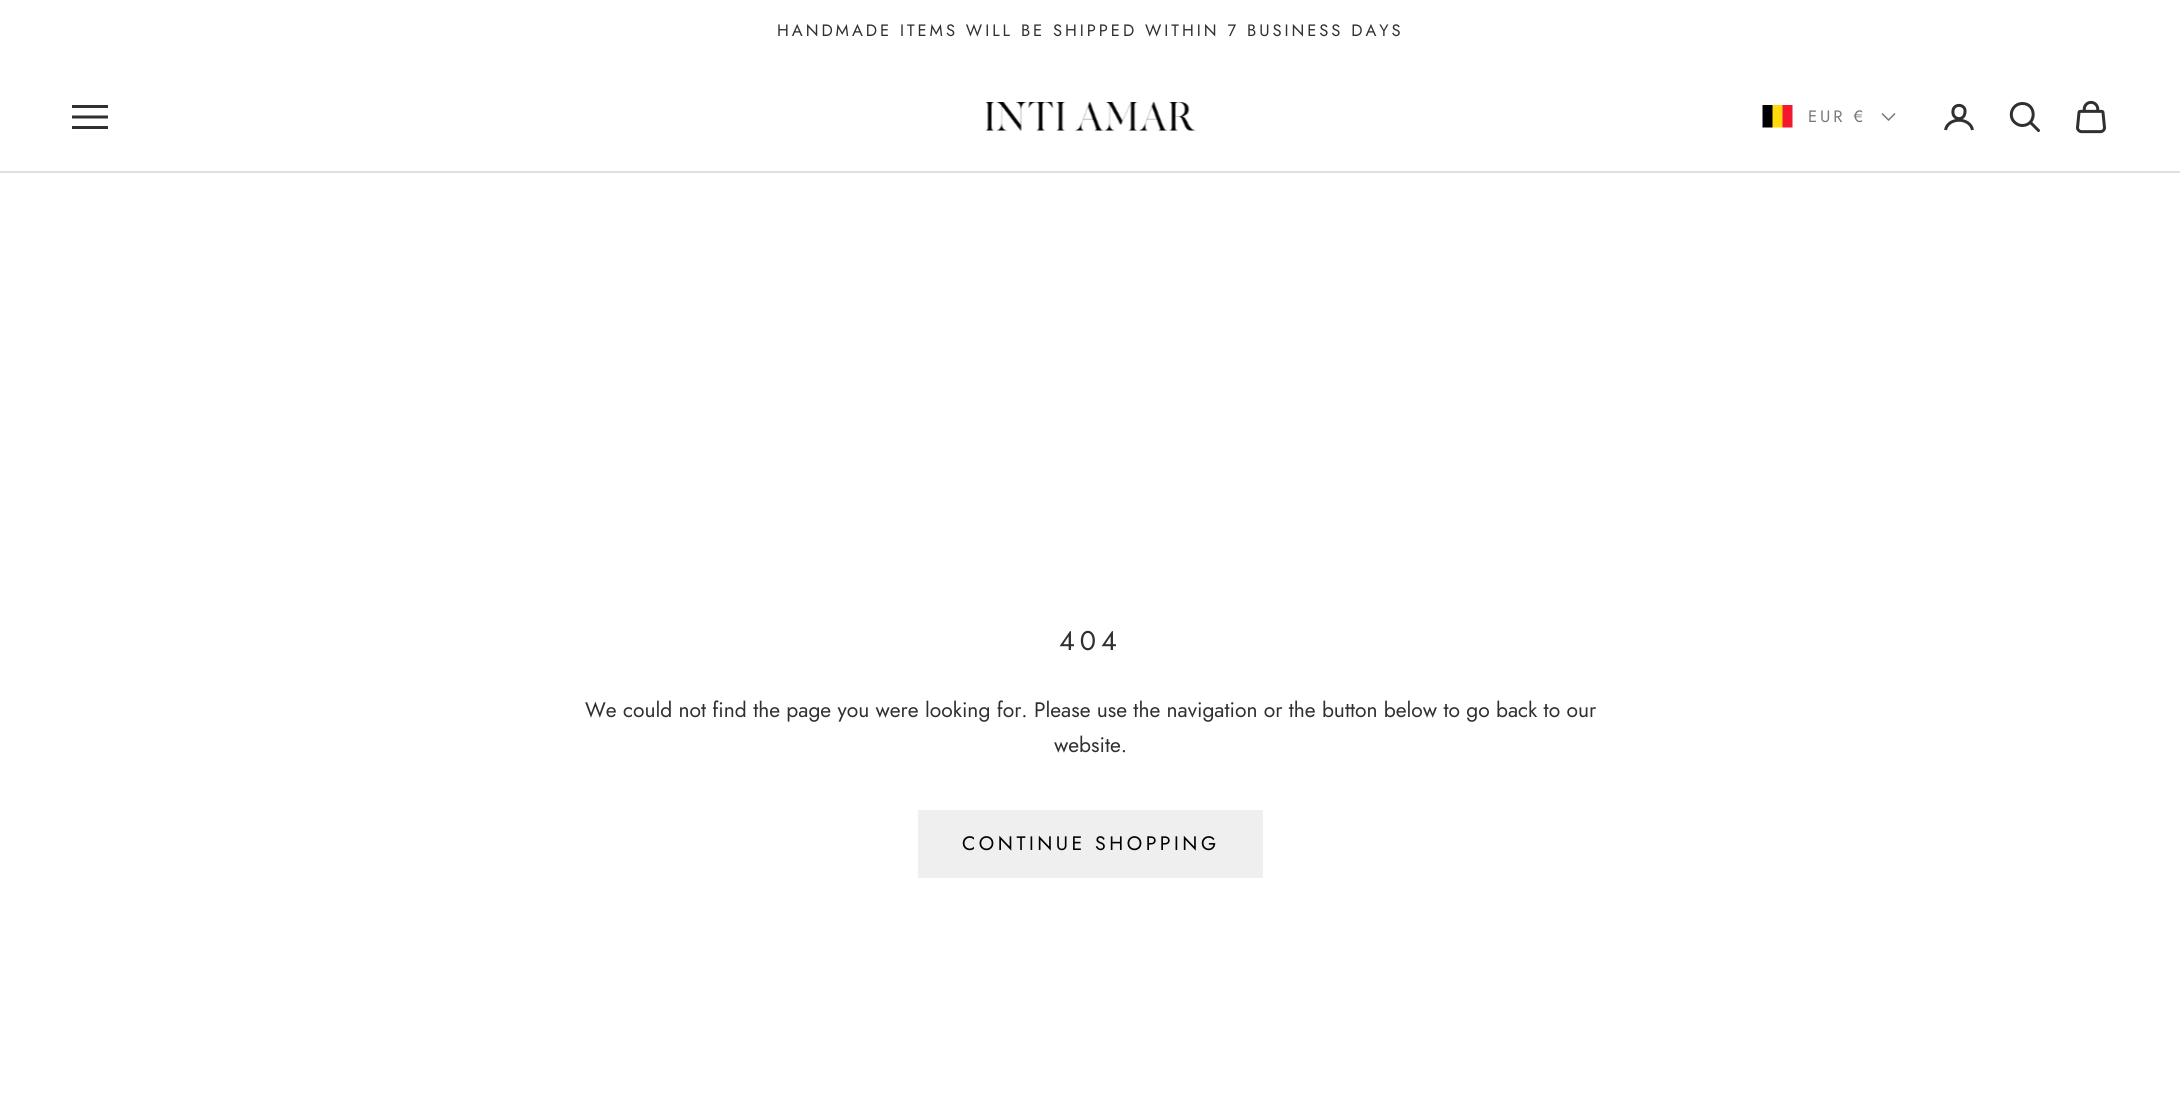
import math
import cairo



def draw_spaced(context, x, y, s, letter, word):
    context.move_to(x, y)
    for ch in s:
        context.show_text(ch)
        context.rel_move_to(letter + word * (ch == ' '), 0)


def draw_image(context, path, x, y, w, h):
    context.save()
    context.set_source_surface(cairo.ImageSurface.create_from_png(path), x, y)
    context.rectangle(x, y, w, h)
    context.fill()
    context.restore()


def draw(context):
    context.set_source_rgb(1, 1, 1)
    context.paint()
    context.set_source_rgb(224 / 255, 224 / 255, 224 / 255)
    context.rectangle(0, 171, 2180, 2)
    context.fill()
    context.new_path()
    context.move_to(73.5, 127.5)
    context.line_to(106.5, 127.5)
    context.move_to(73.5, 117)
    context.line_to(106.5, 117)
    context.move_to(73.5, 106.5)
    context.line_to(106.5, 106.5)
    context.set_source_rgb(48 / 255, 48 / 255, 48 / 255)
    context.set_line_width(3)
    context.set_line_cap(cairo.LineCap.SQUARE)
    context.stroke()
    draw_image(context, "images/1.png", 986, 102, 210, 29)
    draw_image(context, "images/2.png", 1762, 105, 31, 23)
    context.new_path()
    context.move_to(1882.5, 114)
    context.line_to(1888.5, 120)
    context.line_to(1894.5, 114)
    context.set_source_rgb(120 / 255, 120 / 255, 120 / 255)
    context.set_line_width(1.5)
    context.stroke()
    context.new_path()
    context.move_to(1965, 112)
    context.curve_to(1964.5, 122, 1951.5, 120, 1953, 110.5)
    context.curve_to(1954, 103, 1966, 104, 1965, 112)
    context.close_path()
    context.set_source_rgb(48 / 255, 48 / 255, 48 / 255)
    context.set_line_width(3)
    context.set_line_cap(cairo.LineCap.ROUND)
    context.set_line_join(cairo.LineJoin.ROUND)
    context.stroke()
    context.new_path()
    context.move_to(1945.5, 130)
    context.curve_to(1948, 117, 1970, 117, 1972.5, 130)
    context.set_line_cap(cairo.LineCap.BUTT)
    context.set_line_join(cairo.LineJoin.MITER)
    context.stroke()
    context.new_path()
    context.move_to(2022.5, 103.5)
    context.curve_to(2011, 103.5, 2007, 118.5, 2017, 124)
    context.curve_to(2018.5, 125, 2020.5, 125.5, 2022.5, 125.5)
    context.curve_to(2037, 125, 2036.5, 103.5, 2022.5, 103.5)
    context.close_path()
    context.stroke()
    context.new_path()
    context.move_to(2031, 123)
    context.line_to(2038.5, 130.5)
    context.set_line_cap(cairo.LineCap.ROUND)
    context.stroke()
    draw_image(context, "images/3.png", 2076, 100, 30, 34)
    context.set_source_rgb(239 / 255, 239 / 255, 239 / 255)
    context.rectangle(919, 811, 343, 66)
    context.fill_preserve()
    context.set_line_width(2)
    context.set_line_cap(cairo.LineCap.BUTT)
    context.stroke()
    context.select_font_face("Jost")
    context.set_font_size(16.5)
    context.set_source_rgb(48 / 255, 48 / 255, 48 / 255)
    draw_spaced(context, 777, 36, "HANDMADE ITEMS WILL BE SHIPPED WITHIN 7 BUSINESS DAYS", 2.97, 0)
    context.set_source_rgb(120 / 255, 120 / 255, 120 / 255)
    draw_spaced(context, 1808, 122, "EUR €", 2.97, 0)
    context.set_font_size(27)
    context.set_source_rgb(48 / 255, 48 / 255, 48 / 255)
    draw_spaced(context, 1059, 650, "404", 5, 0)
    context.set_font_size(21)
    context.move_to(585, 717)
    context.show_text("We could not find the page you were looking for. Please use the navigation or the button below to go back to our")
    context.move_to(1054, 752)
    context.show_text("website.")
    context.set_font_size(19.5)
    context.set_source_rgb(0, 0, 0)
    draw_spaced(context, 962, 850, "CONTINUE SHOPPING", 3.5, 0)


surface = cairo.ImageSurface(cairo.Format.RGB24, 2180, 1096)
context = cairo.Context(surface)
options = cairo.FontOptions()
options.set_hint_metrics(cairo.HintMetrics.OFF)
options.set_hint_style(cairo.HintStyle.NONE)
context.set_font_options(options)
context.set_miter_limit(4)
draw(context)
surface.write_to_png("out.png")
